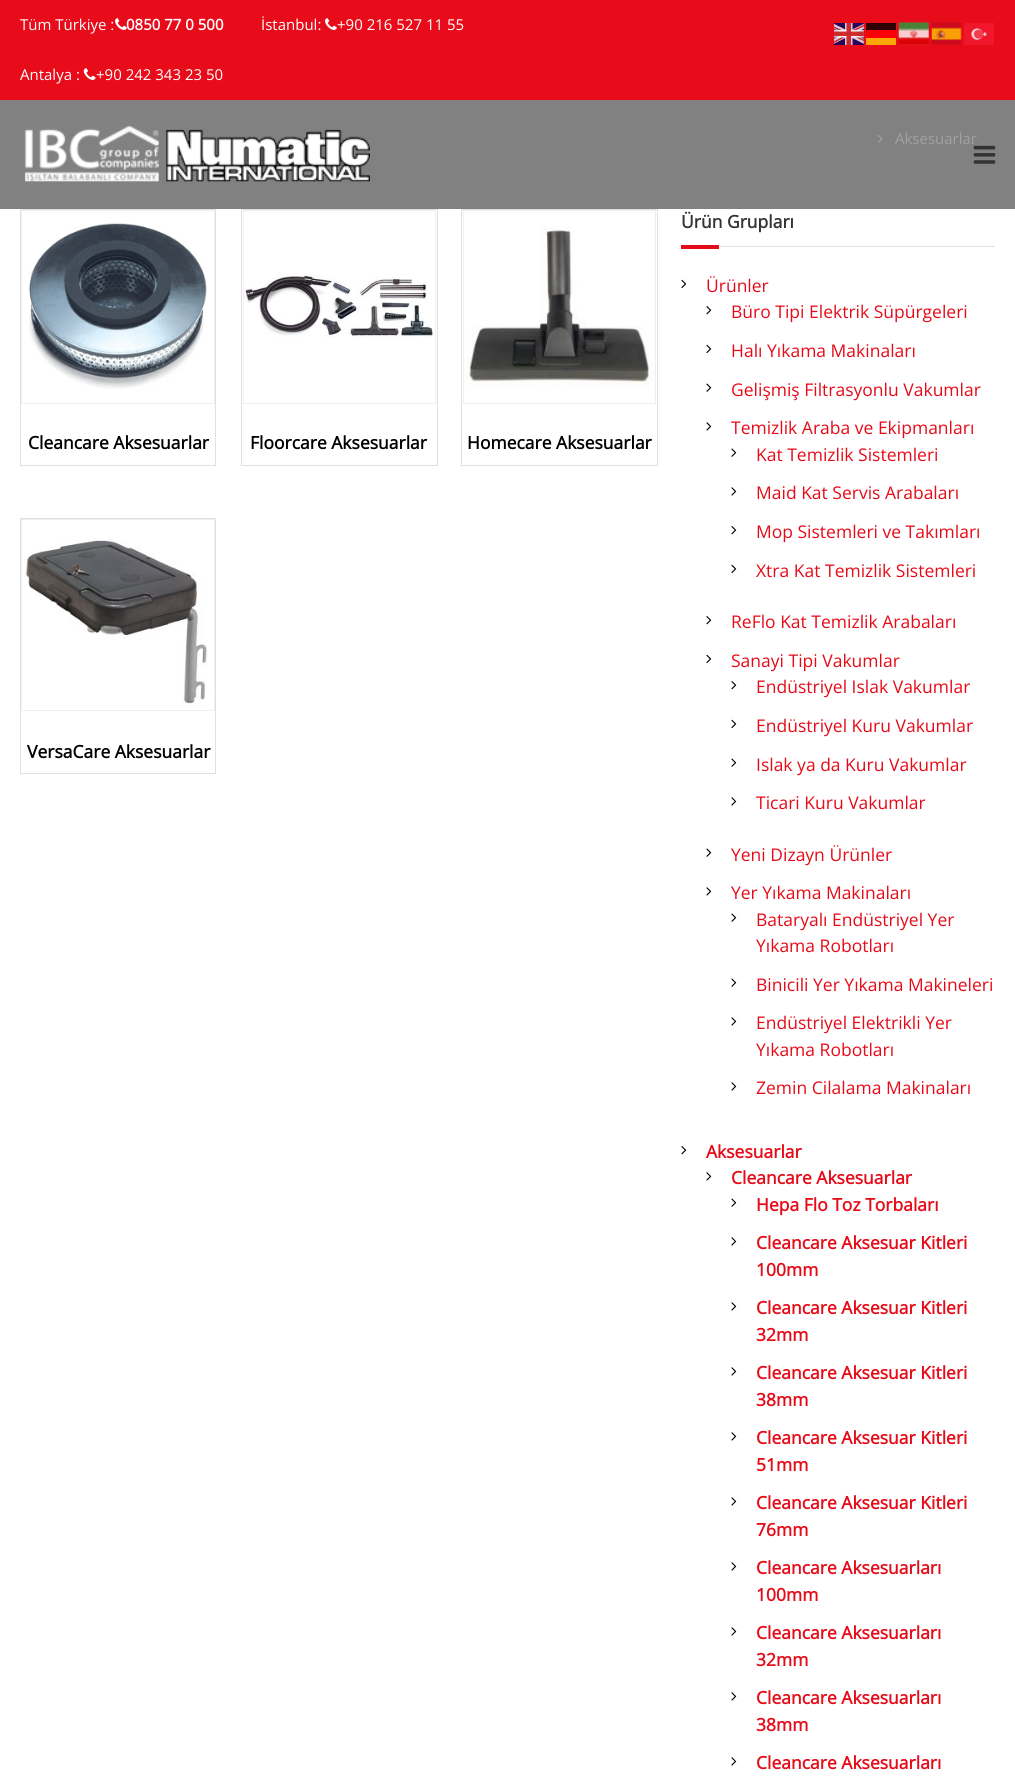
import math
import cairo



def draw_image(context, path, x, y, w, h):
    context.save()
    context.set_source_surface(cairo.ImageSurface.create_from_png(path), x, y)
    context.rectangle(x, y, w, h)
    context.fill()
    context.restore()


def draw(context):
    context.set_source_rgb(1, 1, 1)
    context.paint()
    context.set_source_rgb(232 / 255, 12 / 255, 26 / 255)
    context.rectangle(0, 0, 1015, 100)
    context.fill()
    draw_image(context, "images/1.png", 115, 18, 12, 12)
    draw_image(context, "images/1.png", 325, 18, 12, 12)
    draw_image(context, "images/2.png", 83, 68, 13, 12)
    context.set_source_rgb(130 / 255, 129 / 255, 129 / 255)
    context.rectangle(0, 100, 1015, 109)
    context.fill()
    draw_image(context, "images/3.png", 24, 126, 346, 56)
    draw_image(context, "images/4.png", 973, 145, 23, 19)
    draw_image(context, "images/5.png", 877, 135, 6, 8)
    context.rectangle(20.5, 209.5, 195, 256)
    context.set_source_rgb(224 / 255, 224 / 255, 224 / 255)
    context.set_line_width(1)
    context.stroke()
    context.rectangle(21.5, 210.5, 193, 193)
    context.set_source_rgb(239 / 255, 239 / 255, 239 / 255)
    context.stroke()
    draw_image(context, "images/6.png", 29, 223, 178, 166)
    context.rectangle(241.5, 209.5, 196, 256)
    context.set_source_rgb(224 / 255, 224 / 255, 224 / 255)
    context.stroke()
    context.rectangle(243.5, 210.5, 192, 193)
    context.set_source_rgb(239 / 255, 239 / 255, 239 / 255)
    context.stroke()
    draw_image(context, "images/7.png", 243, 212, 190, 190)
    context.rectangle(461.5, 209.5, 196, 256)
    context.set_source_rgb(224 / 255, 224 / 255, 224 / 255)
    context.stroke()
    context.rectangle(463.5, 210.5, 192, 193)
    context.set_source_rgb(239 / 255, 239 / 255, 239 / 255)
    context.stroke()
    draw_image(context, "images/8.png", 463, 212, 192, 190)
    context.rectangle(20.5, 518.5, 195, 255)
    context.set_source_rgb(224 / 255, 224 / 255, 224 / 255)
    context.stroke()
    context.rectangle(21.5, 519.5, 193, 191)
    context.set_source_rgb(239 / 255, 239 / 255, 239 / 255)
    context.stroke()
    draw_image(context, "images/9.png", 23, 540, 186, 167)
    context.set_source_rgb(230 / 255, 11 / 255, 24 / 255)
    context.rectangle(681, 245, 38, 4)
    context.fill()
    context.set_source_rgb(225 / 255, 225 / 255, 225 / 255)
    context.rectangle(719, 246, 276, 1)
    context.fill()
    draw_image(context, "images/10.png", 681, 279, 6, 9)
    draw_image(context, "images/11.png", 706, 306, 6, 9)
    draw_image(context, "images/10.png", 706, 344, 6, 9)
    draw_image(context, "images/12.png", 706, 383, 6, 9)
    draw_image(context, "images/13.png", 706, 422, 6, 9)
    draw_image(context, "images/12.png", 731, 448, 6, 9)
    draw_image(context, "images/13.png", 731, 487, 6, 9)
    draw_image(context, "images/11.png", 731, 526, 6, 9)
    draw_image(context, "images/10.png", 731, 564, 6, 9)
    draw_image(context, "images/11.png", 706, 616, 6, 9)
    draw_image(context, "images/10.png", 706, 654, 6, 9)
    draw_image(context, "images/11.png", 731, 681, 6, 9)
    draw_image(context, "images/10.png", 731, 719, 6, 9)
    draw_image(context, "images/12.png", 731, 758, 6, 9)
    draw_image(context, "images/13.png", 731, 797, 6, 9)
    draw_image(context, "images/12.png", 706, 848, 6, 9)
    draw_image(context, "images/13.png", 706, 887, 6, 9)
    draw_image(context, "images/12.png", 731, 913, 6, 9)
    draw_image(context, "images/12.png", 731, 978, 6, 9)
    draw_image(context, "images/13.png", 731, 1017, 6, 9)
    draw_image(context, "images/13.png", 731, 1082, 6, 9)
    draw_image(context, "images/11.png", 681, 1146, 6, 9)
    draw_image(context, "images/13.png", 706, 1172, 6, 9)
    draw_image(context, "images/12.png", 731, 1198, 6, 9)
    draw_image(context, "images/13.png", 731, 1237, 6, 9)
    draw_image(context, "images/13.png", 731, 1302, 6, 9)
    draw_image(context, "images/13.png", 731, 1367, 6, 9)
    draw_image(context, "images/13.png", 731, 1432, 6, 9)
    draw_image(context, "images/13.png", 731, 1497, 6, 9)
    draw_image(context, "images/13.png", 731, 1562, 6, 9)
    draw_image(context, "images/13.png", 731, 1627, 6, 9)
    draw_image(context, "images/13.png", 731, 1692, 6, 9)
    draw_image(context, "images/13.png", 731, 1757, 6, 9)
    draw_image(context, "images/14.png", 834, 23, 30, 22)
    context.set_source_rgb(46 / 255, 2 / 255, 5 / 255)
    context.rectangle(866, 23, 30, 7)
    context.fill()
    draw_image(context, "images/15.png", 898, 22, 31, 24)
    draw_image(context, "images/16.png", 931, 22, 31, 23)
    draw_image(context, "images/17.png", 964, 23, 30, 22)
    context.set_source_rgb(250 / 255, 2 / 255, 5 / 255)
    context.rectangle(866, 30, 30, 8)
    context.fill()
    context.set_source_rgb(250 / 255, 166 / 255, 5 / 255)
    context.rectangle(866, 38, 30, 7)
    context.fill()
    context.select_font_face("Open Sans")
    context.set_font_size(15)
    context.set_source_rgb(1, 1, 1)
    context.move_to(20, 30)
    context.show_text("Tüm Türkiye :")
    context.select_font_face("Open Sans", cairo.FontSlant.NORMAL, cairo.FontWeight.BOLD)
    context.move_to(126, 30)
    context.show_text("0850 77 0 500")
    context.select_font_face("Open Sans")
    context.move_to(261, 30)
    context.show_text("İstanbul:")
    context.move_to(337, 30)
    context.show_text("+90 216 527 11 55")
    context.move_to(20, 80)
    context.show_text("Antalya :")
    context.move_to(96, 80)
    context.show_text("+90 242 343 23 50")
    context.set_source_rgb(161 / 255, 161 / 255, 161 / 255)
    context.move_to(895, 144)
    context.show_text("Aksesuarlar")
    context.select_font_face("Open Sans", cairo.FontSlant.NORMAL, cairo.FontWeight.BOLD)
    context.set_font_size(17.5)
    context.set_source_rgb(0, 0, 0)
    context.move_to(28, 449)
    context.show_text("Cleancare Aksesuarlar")
    context.move_to(250, 449)
    context.show_text("Floorcare Aksesuarlar")
    context.move_to(467, 449)
    context.show_text("Homecare Aksesuarlar")
    context.move_to(27, 758)
    context.show_text("VersaCare Aksesuarlar")
    context.set_source_rgb(51 / 255, 51 / 255, 51 / 255)
    context.move_to(681, 228)
    context.show_text("Ürün Grupları")
    context.select_font_face("Open Sans")
    context.set_source_rgb(230 / 255, 11 / 255, 24 / 255)
    context.move_to(706, 292)
    context.show_text("Ürünler")
    context.move_to(731, 318)
    context.show_text("Büro Tipi Elektrik Süpürgeleri")
    context.move_to(731, 357)
    context.show_text("Halı Yıkama Makinaları")
    context.move_to(731, 396)
    context.show_text("Gelişmiş Filtrasyonlu Vakumlar")
    context.move_to(731, 434)
    context.show_text("Temizlik Araba ve Ekipmanları")
    context.move_to(756, 461)
    context.show_text("Kat Temizlik Sistemleri")
    context.move_to(756, 499)
    context.show_text("Maid Kat Servis Arabaları")
    context.move_to(756, 538)
    context.show_text("Mop Sistemleri ve Takımları")
    context.move_to(756, 577)
    context.show_text("Xtra Kat Temizlik Sistemleri")
    context.move_to(731, 628)
    context.show_text("ReFlo Kat Temizlik Arabaları")
    context.move_to(731, 667)
    context.show_text("Sanayi Tipi Vakumlar")
    context.move_to(756, 693)
    context.show_text("Endüstriyel Islak Vakumlar")
    context.move_to(756, 732)
    context.show_text("Endüstriyel Kuru Vakumlar")
    context.move_to(756, 771)
    context.show_text("Islak ya da Kuru Vakumlar")
    context.move_to(756, 809)
    context.show_text("Ticari Kuru Vakumlar")
    context.move_to(731, 861)
    context.show_text("Yeni Dizayn Ürünler")
    context.move_to(731, 899)
    context.show_text("Yer Yıkama Makinaları")
    context.move_to(756, 926)
    context.show_text("Bataryalı Endüstriyel Yer")
    context.move_to(756, 952)
    context.show_text("Yıkama Robotları")
    context.move_to(756, 991)
    context.show_text("Binicili Yer Yıkama Makineleri")
    context.move_to(756, 1029)
    context.show_text("Endüstriyel Elektrikli Yer")
    context.move_to(756, 1056)
    context.show_text("Yıkama Robotları")
    context.move_to(756, 1094)
    context.show_text("Zemin Cilalama Makinaları")
    context.select_font_face("Open Sans", cairo.FontSlant.NORMAL, cairo.FontWeight.BOLD)
    context.move_to(706, 1158)
    context.show_text("Aksesuarlar")
    context.move_to(731, 1184)
    context.show_text("Cleancare Aksesuarlar")
    context.move_to(756, 1211)
    context.show_text("Hepa Flo Toz Torbaları")
    context.move_to(756, 1249)
    context.show_text("Cleancare Aksesuar Kitleri")
    context.move_to(756, 1276)
    context.show_text("100mm")
    context.move_to(756, 1314)
    context.show_text("Cleancare Aksesuar Kitleri")
    context.move_to(756, 1341)
    context.show_text("32mm")
    context.move_to(756, 1379)
    context.show_text("Cleancare Aksesuar Kitleri")
    context.move_to(756, 1406)
    context.show_text("38mm")
    context.move_to(756, 1444)
    context.show_text("Cleancare Aksesuar Kitleri")
    context.move_to(756, 1471)
    context.show_text("51mm")
    context.move_to(756, 1509)
    context.show_text("Cleancare Aksesuar Kitleri")
    context.move_to(756, 1536)
    context.show_text("76mm")
    context.move_to(756, 1574)
    context.show_text("Cleancare Aksesuarları")
    context.move_to(756, 1601)
    context.show_text("100mm")
    context.move_to(756, 1639)
    context.show_text("Cleancare Aksesuarları")
    context.move_to(756, 1666)
    context.show_text("32mm")
    context.move_to(756, 1704)
    context.show_text("Cleancare Aksesuarları")
    context.move_to(756, 1731)
    context.show_text("38mm")
    context.move_to(756, 1769)
    context.show_text("Cleancare Aksesuarları")


surface = cairo.ImageSurface(cairo.Format.RGB24, 1015, 1782)
context = cairo.Context(surface)
options = cairo.FontOptions()
options.set_hint_metrics(cairo.HintMetrics.OFF)
options.set_hint_style(cairo.HintStyle.NONE)
context.set_font_options(options)
context.set_miter_limit(4)
draw(context)
surface.write_to_png("out.png")
